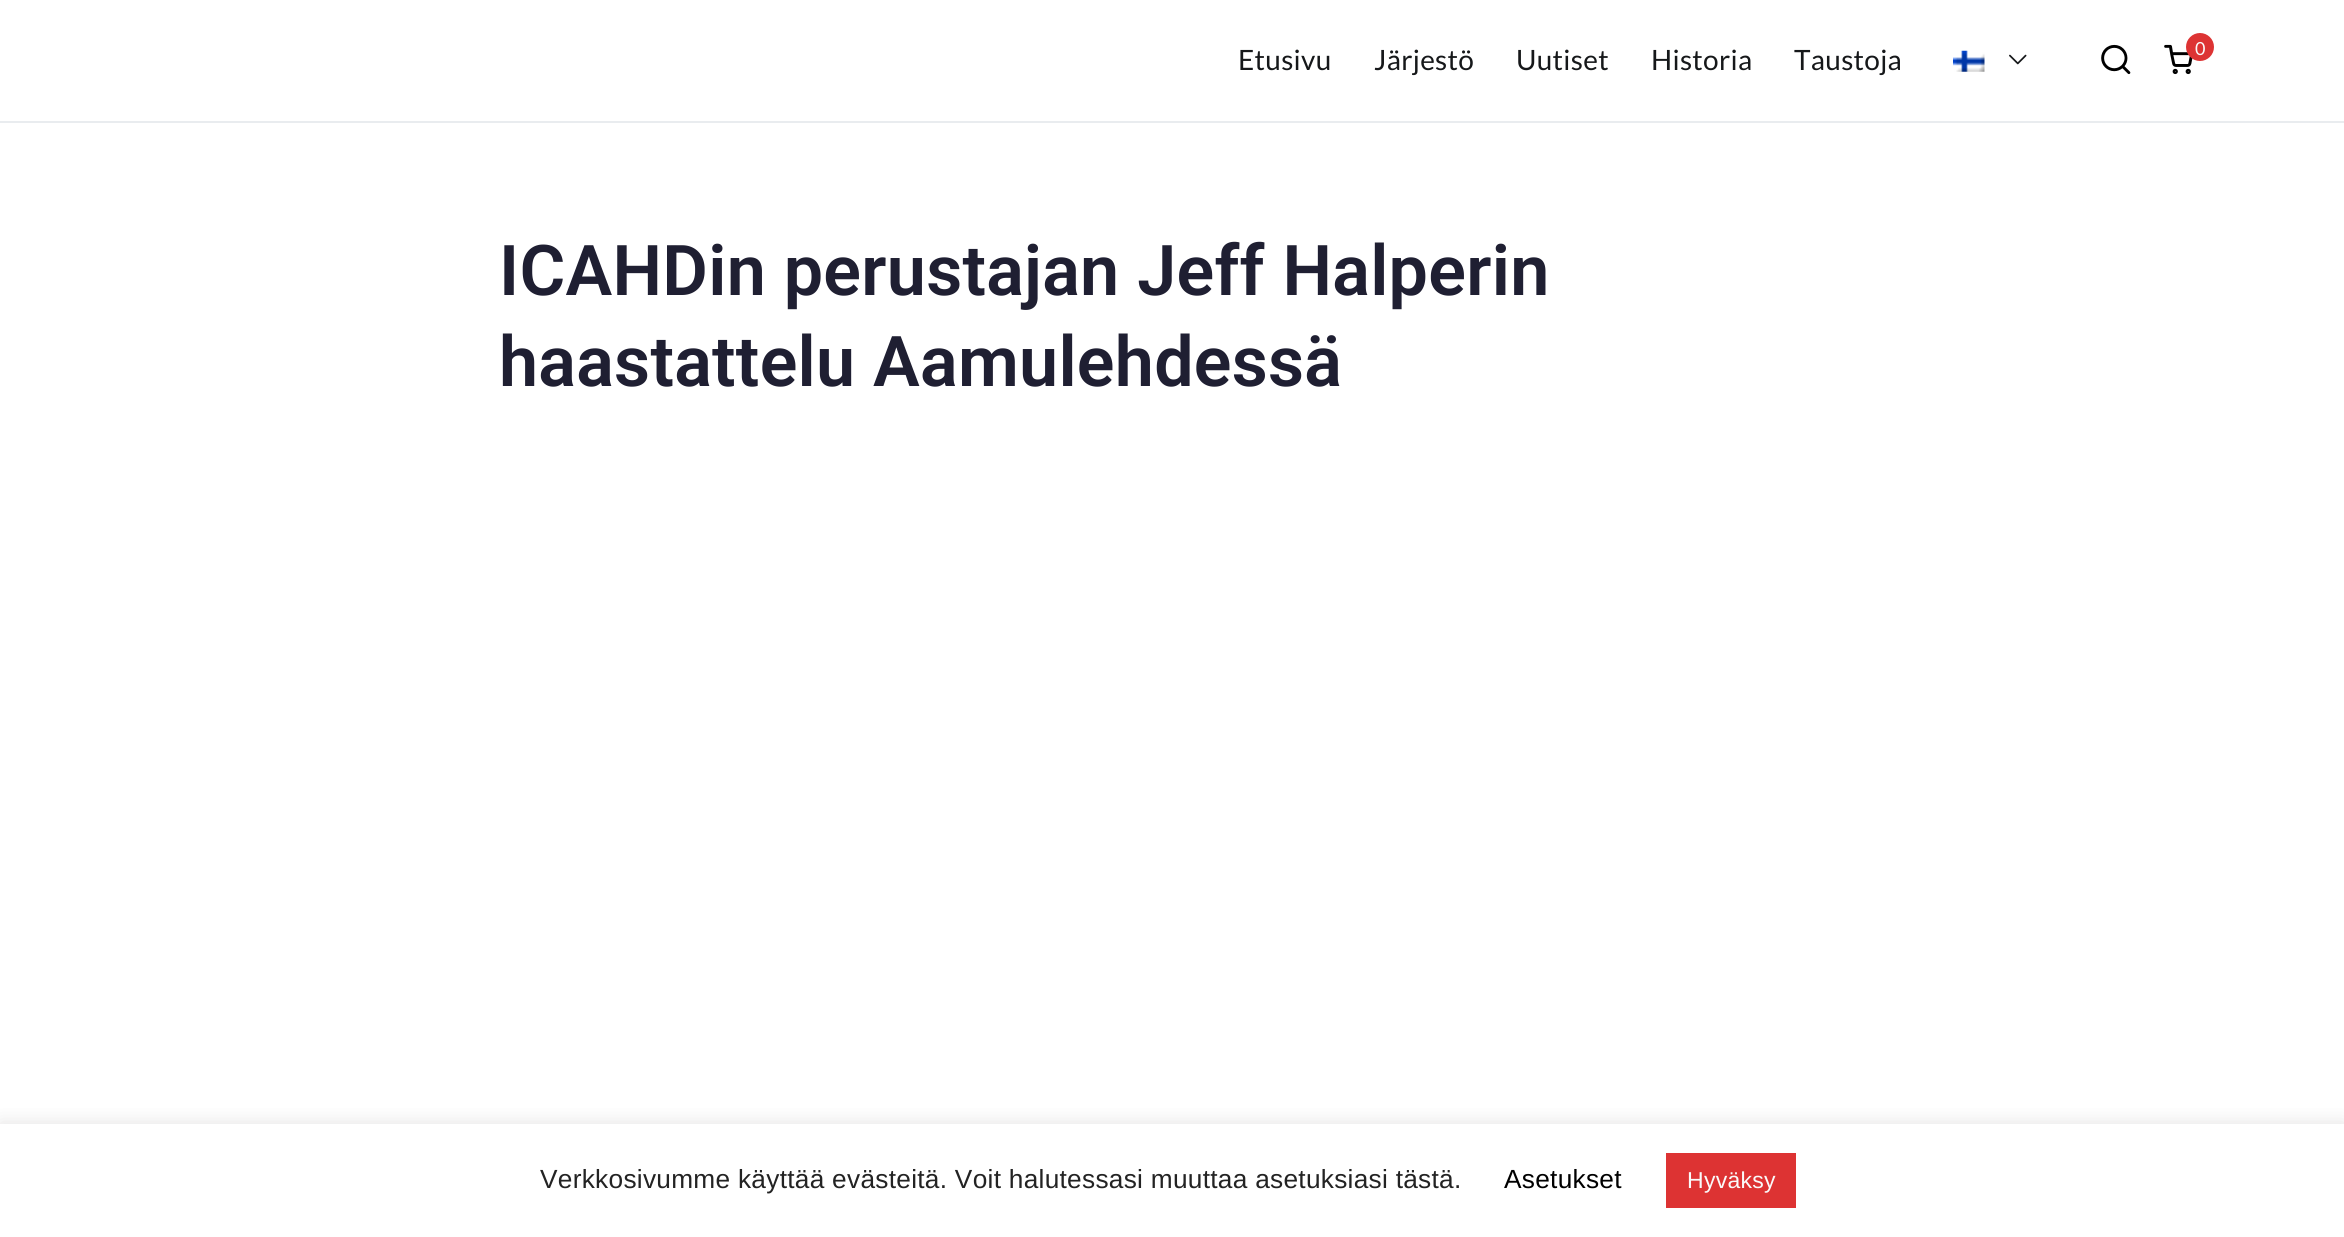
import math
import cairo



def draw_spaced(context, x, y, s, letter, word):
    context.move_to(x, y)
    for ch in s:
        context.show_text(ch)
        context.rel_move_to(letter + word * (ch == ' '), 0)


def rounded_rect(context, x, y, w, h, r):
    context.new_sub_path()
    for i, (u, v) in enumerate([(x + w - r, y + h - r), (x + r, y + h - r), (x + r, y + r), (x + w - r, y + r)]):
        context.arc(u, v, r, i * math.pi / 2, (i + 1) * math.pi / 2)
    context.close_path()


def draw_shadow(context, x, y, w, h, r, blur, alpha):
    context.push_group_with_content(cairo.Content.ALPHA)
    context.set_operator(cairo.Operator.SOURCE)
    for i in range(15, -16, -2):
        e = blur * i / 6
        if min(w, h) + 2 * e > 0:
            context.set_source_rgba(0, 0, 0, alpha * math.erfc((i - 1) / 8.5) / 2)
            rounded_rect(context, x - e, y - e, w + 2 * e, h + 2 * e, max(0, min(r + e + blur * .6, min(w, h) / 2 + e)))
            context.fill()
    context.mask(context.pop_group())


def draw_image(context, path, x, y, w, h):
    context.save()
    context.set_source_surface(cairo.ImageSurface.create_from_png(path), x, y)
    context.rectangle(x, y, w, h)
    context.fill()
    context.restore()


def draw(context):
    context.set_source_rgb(233 / 255, 236 / 255, 239 / 255)
    context.paint()
    context.set_source_rgb(1, 1, 1)
    context.rectangle(0, 0, 2344, 121)
    context.fill()
    draw_image(context, "images/1.png", 1953, 50, 32, 22)
    draw_image(context, "images/2.png", 2009, 54, 18, 11)
    draw_image(context, "images/3.png", 2101, 44, 30, 31)
    draw_image(context, "images/4.png", 2164, 44, 29, 31)
    context.set_source_rgb(221 / 255, 51 / 255, 51 / 255)
    context.arc(2200, 47, 14, 0, 2 * math.pi)
    context.fill()
    context.set_source_rgb(1, 1, 1)
    context.rectangle(0, 123, 2344, 1114)
    context.fill()
    context.save()
    context.rectangle(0, 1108, 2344, 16)
    context.clip()
    context.set_source_rgb(172 / 255, 171 / 255, 171 / 255)
    draw_shadow(context, 0, 1122, 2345, 114, 0, 9, 0.3)
    context.restore()
    context.set_source_rgb(221 / 255, 51 / 255, 51 / 255)
    context.rectangle(1666, 1153, 130, 55)
    context.fill()
    context.select_font_face("Lato")
    context.set_font_size(28)
    context.set_source_rgb(22 / 255, 24 / 255, 26 / 255)
    draw_spaced(context, 1238, 70, "Etusivu", 0.28, 0)
    draw_spaced(context, 1374, 70, "Järjestö", 0.28, 0)
    draw_spaced(context, 1516, 70, "Uutiset", 0.28, 0)
    draw_spaced(context, 1651, 70, "Historia", 0.28, 0)
    draw_spaced(context, 1794, 70, "Taustoja", 0.28, 0)
    context.set_font_size(18)
    context.set_source_rgb(250 / 255, 250 / 255, 250 / 255)
    draw_spaced(context, 2195, 55, "0", 0.28, 0)
    context.select_font_face("Roboto SemiBold")
    context.set_font_size(70)
    context.set_source_rgb(31 / 255, 31 / 255, 50 / 255)
    draw_spaced(context, 499, 295, "ICAHDin perustajan Jeff Halperin", 0.28, 0)
    draw_spaced(context, 499, 386, "haastattelu Aamulehdessä", 0.28, 0)
    context.select_font_face("Liberation Sans")
    context.set_font_size(26.25)
    context.set_source_rgb(35 / 255, 35 / 255, 35 / 255)
    draw_spaced(context, 540, 1188, "Verkkosivumme käyttää evästeitä. Voit halutessasi muuttaa asetuksiasi tästä.", 0.28, 0)
    context.set_source_rgb(0, 0, 0)
    draw_spaced(context, 1504, 1188, "Asetukset", 0.28, 0)
    context.set_font_size(23)
    context.set_source_rgb(250 / 255, 250 / 255, 250 / 255)
    draw_spaced(context, 1687, 1188, "Hyväksy", 0.28, 0)


surface = cairo.ImageSurface(cairo.Format.RGB24, 2344, 1237)
context = cairo.Context(surface)
options = cairo.FontOptions()
options.set_hint_metrics(cairo.HintMetrics.OFF)
options.set_hint_style(cairo.HintStyle.NONE)
context.set_font_options(options)
context.set_miter_limit(4)
draw(context)
surface.write_to_png("out.png")
